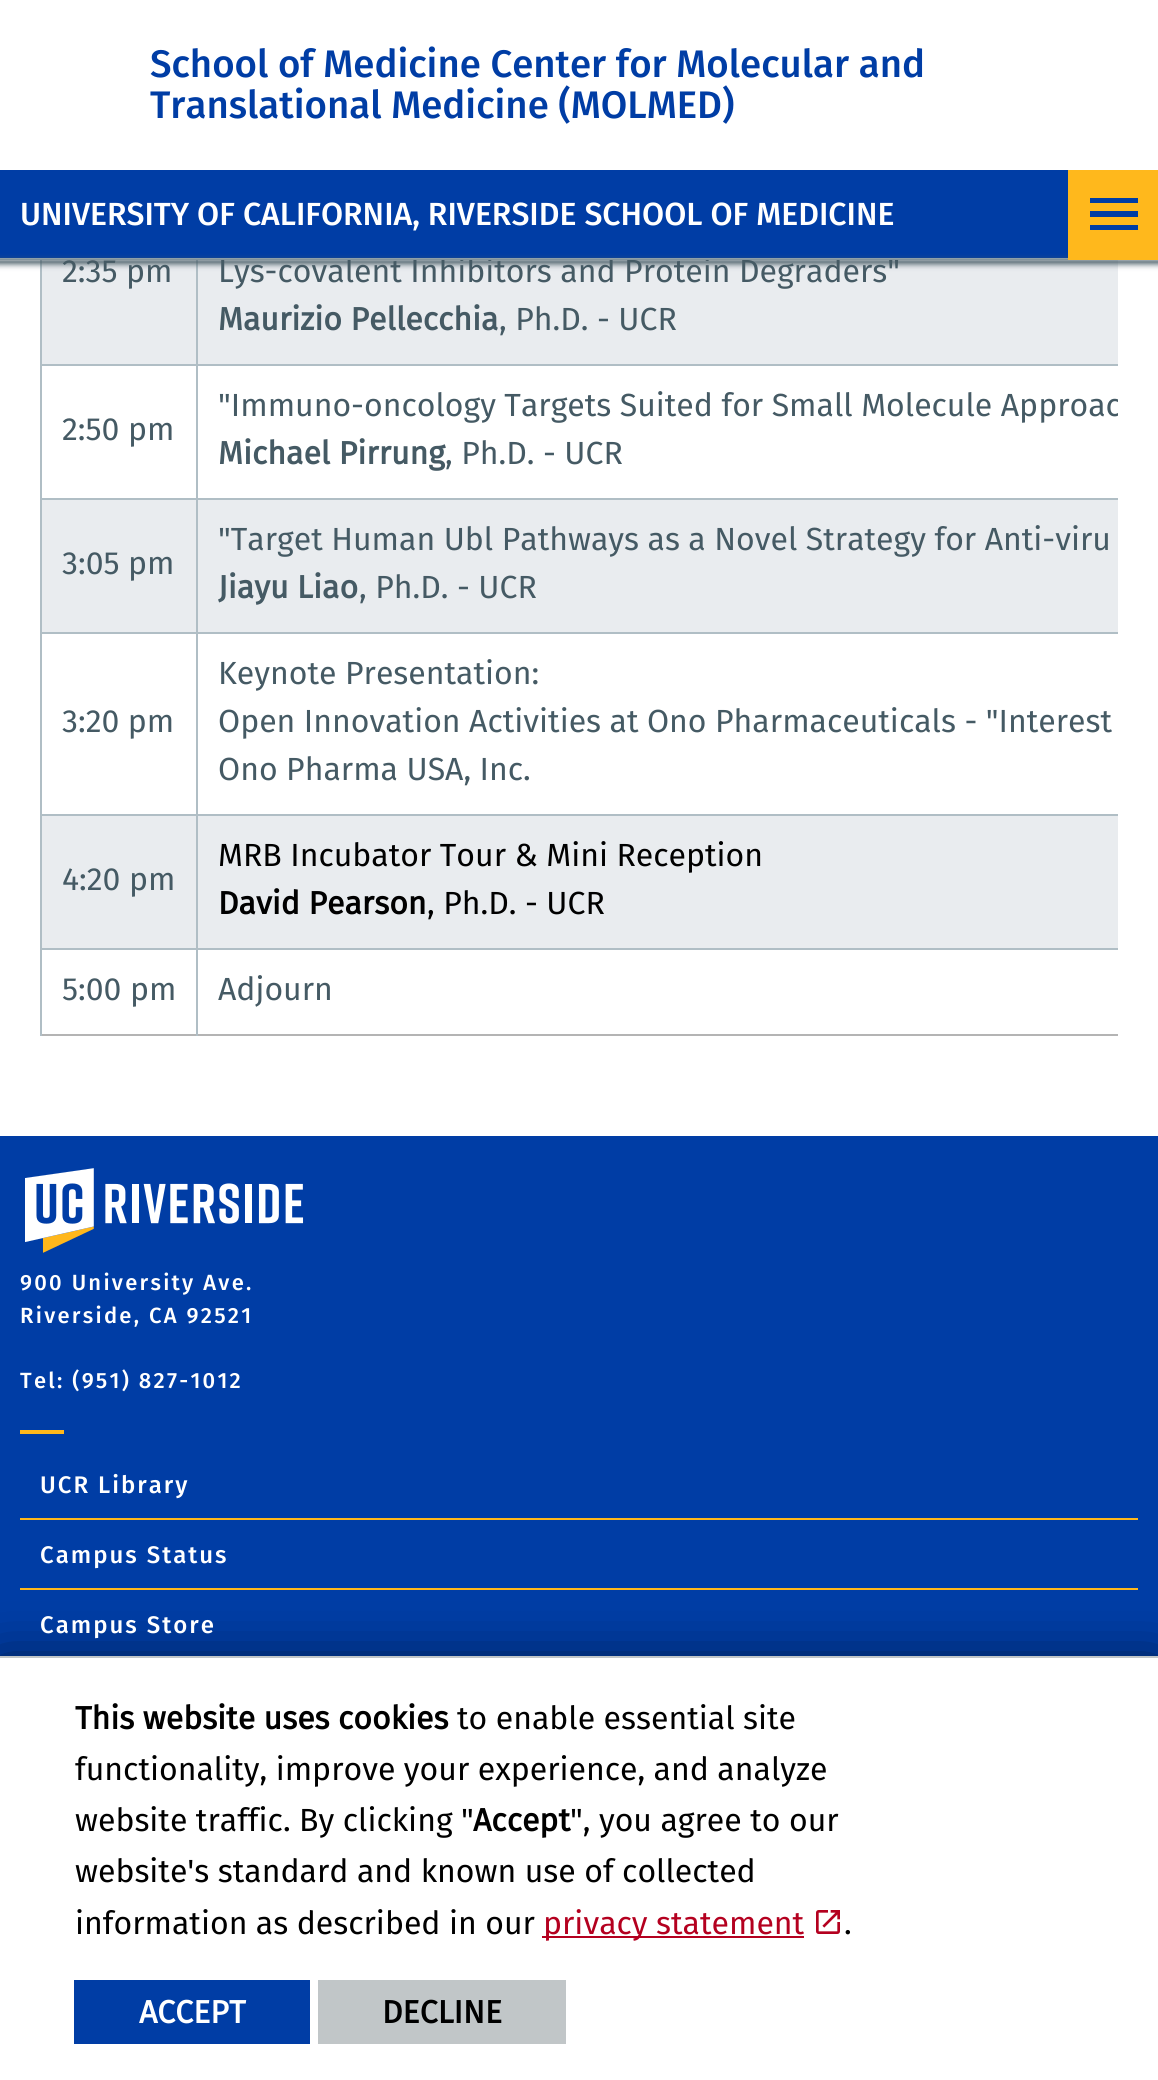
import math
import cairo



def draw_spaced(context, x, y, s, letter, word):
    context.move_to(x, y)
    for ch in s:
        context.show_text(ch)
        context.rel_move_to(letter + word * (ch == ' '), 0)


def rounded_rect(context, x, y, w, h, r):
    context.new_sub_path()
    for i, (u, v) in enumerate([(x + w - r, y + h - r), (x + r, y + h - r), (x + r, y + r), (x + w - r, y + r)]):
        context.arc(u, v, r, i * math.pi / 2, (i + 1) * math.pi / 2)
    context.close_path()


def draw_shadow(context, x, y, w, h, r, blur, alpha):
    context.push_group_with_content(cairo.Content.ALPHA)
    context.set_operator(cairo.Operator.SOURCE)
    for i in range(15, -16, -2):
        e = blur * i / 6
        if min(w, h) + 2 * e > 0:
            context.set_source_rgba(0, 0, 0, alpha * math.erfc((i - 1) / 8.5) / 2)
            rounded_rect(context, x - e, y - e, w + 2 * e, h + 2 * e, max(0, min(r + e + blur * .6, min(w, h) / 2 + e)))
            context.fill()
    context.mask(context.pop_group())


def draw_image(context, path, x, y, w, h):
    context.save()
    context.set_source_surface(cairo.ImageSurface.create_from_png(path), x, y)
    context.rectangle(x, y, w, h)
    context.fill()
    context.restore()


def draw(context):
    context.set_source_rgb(1, 1, 1)
    context.paint()
    context.set_source_rgb(180 / 255, 180 / 255, 180 / 255)
    context.rectangle(40, 1034, 1078, 2)
    context.fill()
    context.set_source_rgb(233 / 255, 236 / 255, 239 / 255)
    context.rectangle(42, 260, 1076, 104)
    context.fill()
    context.set_source_rgb(176 / 255, 190 / 255, 197 / 255)
    context.rectangle(196, 364, 922, 2)
    context.fill()
    context.rectangle(196, 498, 922, 2)
    context.fill()
    context.set_source_rgb(233 / 255, 236 / 255, 239 / 255)
    context.rectangle(42, 500, 1076, 132)
    context.fill()
    context.set_source_rgb(176 / 255, 190 / 255, 197 / 255)
    context.rectangle(196, 632, 922, 2)
    context.fill()
    context.rectangle(196, 814, 922, 2)
    context.fill()
    context.set_source_rgb(233 / 255, 236 / 255, 239 / 255)
    context.rectangle(42, 816, 1076, 132)
    context.fill()
    context.set_source_rgb(176 / 255, 190 / 255, 197 / 255)
    context.rectangle(196, 948, 922, 2)
    context.fill()
    context.rectangle(196, 948, 2, 88)
    context.fill()
    context.rectangle(40, 948, 158, 2)
    context.fill()
    context.rectangle(196, 814, 2, 136)
    context.fill()
    context.rectangle(40, 814, 158, 2)
    context.fill()
    context.rectangle(196, 632, 2, 184)
    context.fill()
    context.rectangle(40, 632, 158, 2)
    context.fill()
    context.rectangle(196, 498, 2, 136)
    context.fill()
    context.rectangle(40, 498, 158, 2)
    context.fill()
    context.rectangle(196, 364, 2, 136)
    context.fill()
    context.rectangle(40, 364, 158, 2)
    context.fill()
    context.rectangle(196, 260, 2, 106)
    context.fill()
    context.rectangle(40, 948, 2, 88)
    context.fill()
    context.rectangle(40, 814, 2, 136)
    context.fill()
    context.rectangle(40, 632, 2, 184)
    context.fill()
    context.rectangle(40, 498, 2, 136)
    context.fill()
    context.rectangle(40, 260, 2, 240)
    context.fill()
    context.set_source_rgb(0, 61 / 255, 165 / 255)
    context.rectangle(0, 1136, 1158, 520)
    context.fill()
    draw_image(context, "images/1.png", 25, 1168, 279, 85)
    context.set_source_rgb(1, 184 / 255, 28 / 255)
    context.rectangle(20, 1430, 44, 4)
    context.fill()
    context.rectangle(20, 1518, 1118, 2)
    context.fill()
    context.rectangle(20, 1588, 1118, 2)
    context.fill()
    context.set_source_rgb(2 / 255, 2 / 255, 3 / 255)
    draw_shadow(context, 0, 1676, 1158, 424, 0, 30, 1)
    context.set_source_rgb(1, 1, 1)
    context.rectangle(0, 1658, 1158, 422)
    context.fill()
    context.set_source_rgb(193 / 255, 198 / 255, 200 / 255)
    context.rectangle(0, 1656, 1158, 2)
    context.fill()
    context.set_source_rgb(180 / 255, 0, 31 / 255)
    context.rectangle(542, 1936, 262, 2)
    context.fill()
    draw_image(context, "images/2.png", 816, 1910, 24, 24)
    context.set_source_rgb(0, 61 / 255, 165 / 255)
    context.rectangle(74, 1980, 236, 64)
    context.fill()
    context.set_source_rgb(193 / 255, 198 / 255, 200 / 255)
    context.rectangle(318, 1980, 248, 64)
    context.fill()
    context.select_font_face("Fira Sans Medium")
    context.set_font_size(38.4)
    context.set_source_rgb(0, 61 / 255, 165 / 255)
    context.move_to(150, 77)
    context.show_text("School of Medicine Center for Molecular and")
    context.move_to(150, 118)
    context.show_text("Translational Medicine (MOLMED)")
    context.select_font_face("Fira Sans")
    context.set_font_size(32)
    context.set_source_rgb(69 / 255, 90 / 255, 100 / 255)
    context.move_to(62, 282)
    context.show_text("2:35 pm")
    context.move_to(218, 282)
    context.show_text("Lys-covalent Inhibitors and Protein Degraders\"")
    context.set_source_rgb(176 / 255, 190 / 255, 197 / 255)
    context.rectangle(0, 258, 1068, 2)
    context.fill()
    context.set_source_rgb(0, 61 / 255, 165 / 255)
    context.rectangle(0, 170, 1068, 88)
    context.fill()
    context.set_source_rgb(69 / 255, 90 / 255, 100 / 255)
    draw_shadow(context, -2, 260, 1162, 4, 0, 3, 1)
    context.set_source_rgb(1, 184 / 255, 28 / 255)
    context.rectangle(1068, 170, 90, 90)
    context.fill()
    context.set_source_rgb(0, 61 / 255, 165 / 255)
    context.new_path()
    context.move_to(1090, 198)
    context.line_to(1138, 198)
    context.line_to(1138, 203)
    context.line_to(1090, 203)
    context.close_path()
    context.move_to(1090, 211)
    context.line_to(1138, 211)
    context.line_to(1138, 217)
    context.line_to(1090, 217)
    context.close_path()
    context.move_to(1090, 225)
    context.line_to(1138, 225)
    context.line_to(1138, 230)
    context.line_to(1090, 230)
    context.close_path()
    context.fill()
    context.select_font_face("Fira Sans Medium")
    context.set_source_rgb(1, 1, 1)
    context.move_to(20, 225)
    context.show_text("UNIVERSITY OF CALIFORNIA, RIVERSIDE SCHOOL OF MEDICINE")
    context.select_font_face("Fira Sans", cairo.FontSlant.NORMAL, cairo.FontWeight.BOLD)
    context.set_source_rgb(69 / 255, 90 / 255, 100 / 255)
    context.move_to(218, 330)
    context.show_text("Maurizio Pellecchia")
    context.select_font_face("Fira Sans")
    context.move_to(499, 330)
    context.show_text(", Ph.D. - UCR")
    context.move_to(62, 440)
    context.show_text("2:50 pm")
    context.save()
    context.rectangle(40, 0, 1078, 1068)
    context.clip()
    context.move_to(218, 416)
    context.show_text("\"Immuno-oncology Targets Suited for Small Molecule Approac")
    context.restore()
    context.select_font_face("Fira Sans", cairo.FontSlant.NORMAL, cairo.FontWeight.BOLD)
    context.move_to(218, 464)
    context.show_text("Michael Pirrung")
    context.select_font_face("Fira Sans")
    context.move_to(445, 464)
    context.show_text(", Ph.D. - UCR")
    context.move_to(62, 574)
    context.show_text("3:05 pm")
    context.move_to(218, 550)
    context.show_text("\"Target Human Ubl Pathways as a Novel Strategy for Anti-viru")
    context.select_font_face("Fira Sans", cairo.FontSlant.NORMAL, cairo.FontWeight.BOLD)
    context.move_to(218, 598)
    context.show_text("Jiayu Liao")
    context.select_font_face("Fira Sans")
    context.move_to(359, 598)
    context.show_text(", Ph.D. - UCR")
    context.move_to(62, 732)
    context.show_text("3:20 pm")
    context.move_to(218, 684)
    context.show_text("Keynote Presentation:")
    context.move_to(218, 732)
    context.show_text("Open Innovation Activities at Ono Pharmaceuticals - \"Interest")
    context.move_to(218, 780)
    context.show_text("Ono Pharma USA, Inc.")
    context.move_to(62, 890)
    context.show_text("4:20 pm")
    context.set_source_rgb(0, 0, 0)
    context.move_to(218, 866)
    context.show_text("MRB Incubator Tour & Mini Reception")
    context.select_font_face("Fira Sans", cairo.FontSlant.NORMAL, cairo.FontWeight.BOLD)
    context.move_to(218, 914)
    context.show_text("David Pearson")
    context.select_font_face("Fira Sans")
    context.move_to(427, 914)
    context.show_text(", Ph.D. - UCR")
    context.set_source_rgb(69 / 255, 90 / 255, 100 / 255)
    context.move_to(62, 1000)
    context.show_text("5:00 pm")
    context.move_to(218, 1000)
    context.show_text("Adjourn")
    context.select_font_face("Fira Sans Medium")
    context.set_font_size(22)
    context.set_source_rgb(1, 1, 1)
    draw_spaced(context, 20, 1290, "900 University Ave.", 2.25, 0)
    draw_spaced(context, 20, 1323, "Riverside, CA 92521", 2.25, 0)
    draw_spaced(context, 20, 1388, "Tel: (951) 827-1012", 2.25, 0)
    context.set_font_size(24)
    draw_spaced(context, 40, 1493, "UCR Library", 2, 0)
    draw_spaced(context, 40, 1563, "Campus Status", 2, 0)
    draw_spaced(context, 40, 1633, "Campus Store", 2, 0)
    context.select_font_face("Fira Sans", cairo.FontSlant.NORMAL, cairo.FontWeight.BOLD)
    context.set_font_size(32)
    context.set_source_rgb(0, 0, 0)
    context.move_to(75, 1729)
    context.show_text("This website uses cookies")
    context.select_font_face("Fira Sans")
    context.move_to(457, 1729)
    context.show_text("to enable essential site")
    context.move_to(75, 1780)
    context.show_text("functionality, improve your experience, and analyze")
    context.move_to(75, 1831)
    context.show_text("website traffic. By clicking \"")
    context.select_font_face("Fira Sans", cairo.FontSlant.NORMAL, cairo.FontWeight.BOLD)
    context.move_to(473, 1831)
    context.show_text("Accept")
    context.select_font_face("Fira Sans")
    context.move_to(570, 1831)
    context.show_text("\", you agree to our")
    context.move_to(75, 1882)
    context.show_text("website's standard and known use of collected")
    context.move_to(75, 1934)
    context.show_text("information as described in our")
    context.set_source_rgb(180 / 255, 0, 31 / 255)
    context.move_to(543, 1934)
    context.show_text("privacy statement")
    context.set_source_rgb(0, 0, 0)
    context.move_to(844, 1934)
    context.show_text(".")
    context.select_font_face("Fira Sans", cairo.FontSlant.NORMAL, cairo.FontWeight.BOLD)
    context.set_source_rgb(1, 1, 1)
    context.move_to(139, 2023)
    context.show_text("ACCEPT")
    context.set_source_rgb(0, 0, 0)
    context.move_to(382, 2023)
    context.show_text("DECLINE")


surface = cairo.ImageSurface(cairo.Format.RGB24, 1158, 2080)
context = cairo.Context(surface)
options = cairo.FontOptions()
options.set_hint_metrics(cairo.HintMetrics.OFF)
options.set_hint_style(cairo.HintStyle.NONE)
context.set_font_options(options)
context.set_miter_limit(4)
draw(context)
surface.write_to_png("out.png")
